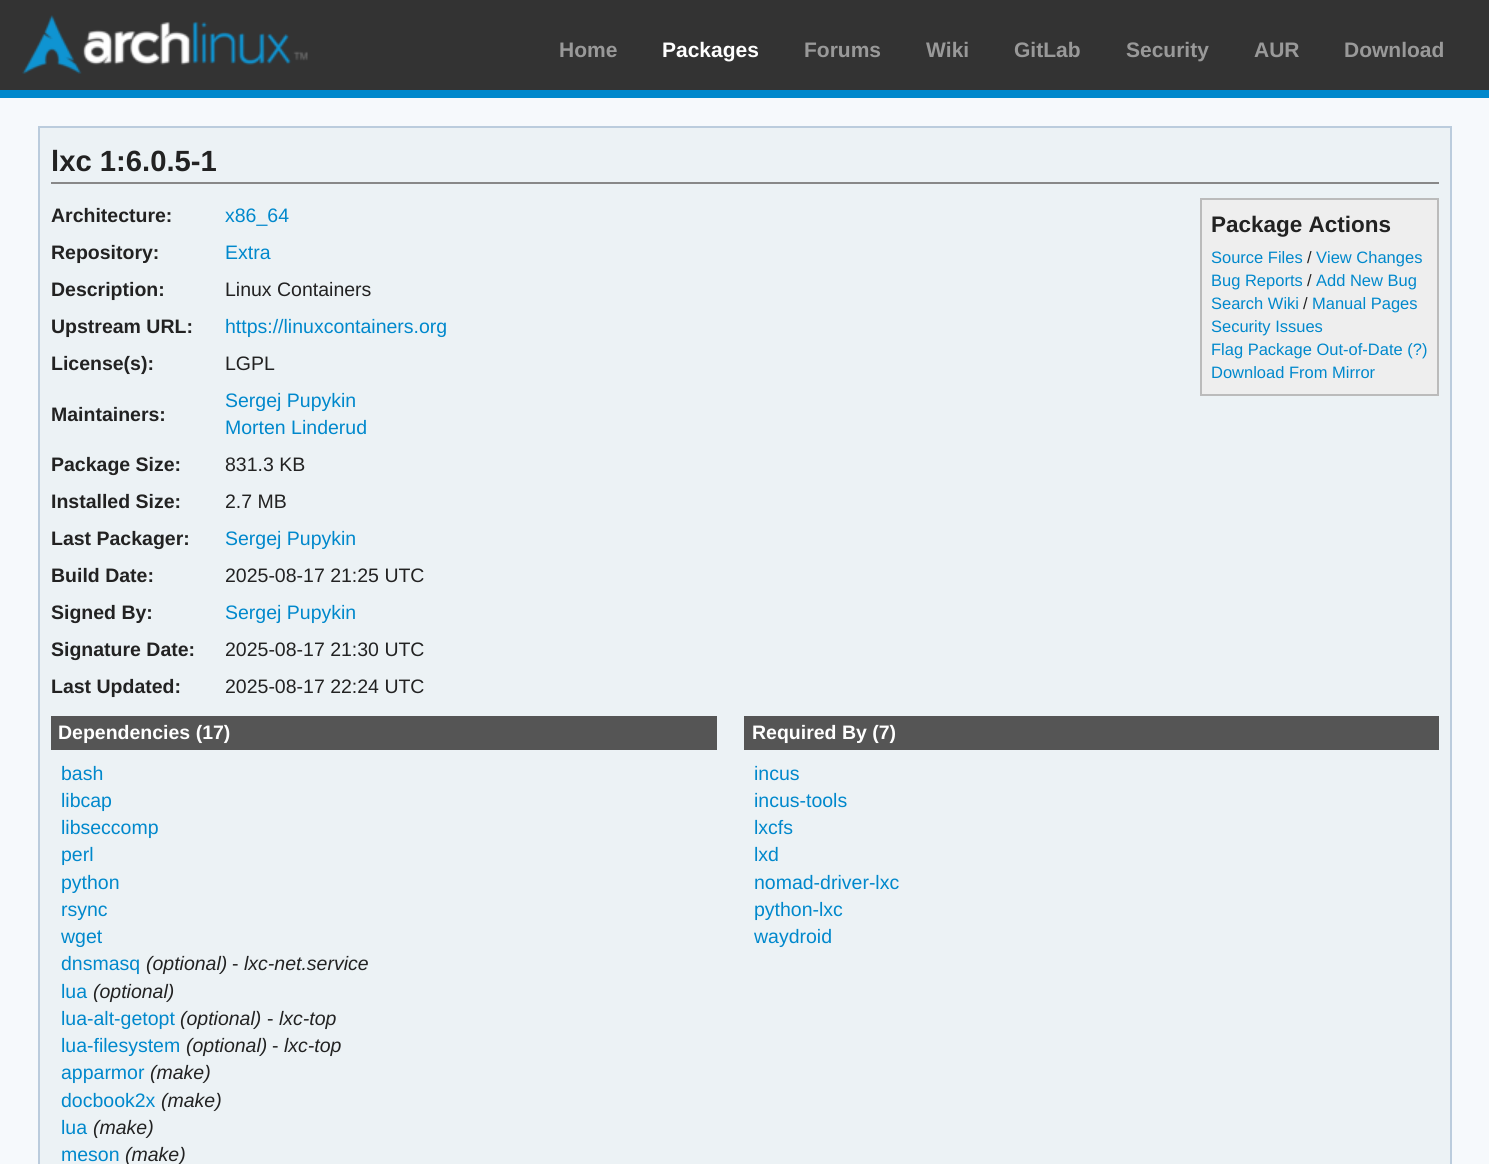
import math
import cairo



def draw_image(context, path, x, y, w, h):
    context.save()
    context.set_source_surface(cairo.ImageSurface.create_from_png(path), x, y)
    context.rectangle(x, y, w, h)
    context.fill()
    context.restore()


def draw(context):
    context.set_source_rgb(246 / 255, 249 / 255, 252 / 255)
    context.paint()
    context.set_source_rgb(51 / 255, 51 / 255, 51 / 255)
    context.rectangle(0, 0, 1489, 90)
    context.fill()
    context.set_source_rgb(0, 136 / 255, 204 / 255)
    context.rectangle(0, 90, 1489, 8)
    context.fill()
    draw_image(context, "images/1.png", 22, 15, 286, 59)
    context.set_source_rgb(236 / 255, 242 / 255, 245 / 255)
    context.rectangle(39, 127, 1412, 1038)
    context.fill_preserve()
    context.set_source_rgb(187 / 255, 204 / 255, 221 / 255)
    context.stroke()
    context.set_source_rgb(136 / 255, 136 / 255, 136 / 255)
    context.rectangle(51, 182, 1388, 2)
    context.fill()
    context.set_source_rgb(238 / 255, 238 / 255, 238 / 255)
    context.rectangle(1201, 199, 237, 196)
    context.fill_preserve()
    context.set_source_rgb(187 / 255, 187 / 255, 187 / 255)
    context.stroke()
    context.set_source_rgb(85 / 255, 85 / 255, 85 / 255)
    context.rectangle(51, 716, 666, 34)
    context.fill()
    context.rectangle(744, 716, 695, 34)
    context.fill()
    context.select_font_face("Liberation Sans", cairo.FontSlant.NORMAL, cairo.FontWeight.BOLD)
    context.set_font_size(21)
    context.set_source_rgb(153 / 255, 153 / 255, 153 / 255)
    context.move_to(559, 57)
    context.show_text("Home")
    context.set_source_rgb(1, 1, 1)
    context.move_to(662, 57)
    context.show_text("Packages")
    context.set_source_rgb(153 / 255, 153 / 255, 153 / 255)
    context.move_to(804, 57)
    context.show_text("Forums")
    context.move_to(926, 57)
    context.show_text("Wiki")
    context.move_to(1014, 57)
    context.show_text("GitLab")
    context.move_to(1126, 57)
    context.show_text("Security")
    context.move_to(1254, 57)
    context.show_text("AUR")
    context.move_to(1344, 57)
    context.show_text("Download")
    context.set_font_size(29.25)
    context.set_source_rgb(34 / 255, 34 / 255, 34 / 255)
    context.move_to(51, 171)
    context.show_text("lxc 1:6.0.5-1")
    context.set_font_size(19.5)
    context.move_to(51, 222)
    context.show_text("Architecture:")
    context.select_font_face("Liberation Sans")
    context.set_source_rgb(0, 136 / 255, 204 / 255)
    context.move_to(225, 222)
    context.show_text("x86_64")
    context.select_font_face("Liberation Sans", cairo.FontSlant.NORMAL, cairo.FontWeight.BOLD)
    context.set_source_rgb(34 / 255, 34 / 255, 34 / 255)
    context.move_to(51, 259)
    context.show_text("Repository:")
    context.select_font_face("Liberation Sans")
    context.set_source_rgb(0, 136 / 255, 204 / 255)
    context.move_to(225, 259)
    context.show_text("Extra")
    context.select_font_face("Liberation Sans", cairo.FontSlant.NORMAL, cairo.FontWeight.BOLD)
    context.set_source_rgb(34 / 255, 34 / 255, 34 / 255)
    context.move_to(51, 296)
    context.show_text("Description:")
    context.select_font_face("Liberation Sans")
    context.move_to(225, 296)
    context.show_text("Linux Containers")
    context.select_font_face("Liberation Sans", cairo.FontSlant.NORMAL, cairo.FontWeight.BOLD)
    context.move_to(51, 333)
    context.show_text("Upstream URL:")
    context.select_font_face("Liberation Sans")
    context.set_source_rgb(0, 136 / 255, 204 / 255)
    context.move_to(225, 333)
    context.show_text("https://linuxcontainers.org")
    context.select_font_face("Liberation Sans", cairo.FontSlant.NORMAL, cairo.FontWeight.BOLD)
    context.set_source_rgb(34 / 255, 34 / 255, 34 / 255)
    context.move_to(51, 370)
    context.show_text("License(s):")
    context.select_font_face("Liberation Sans")
    context.move_to(225, 370)
    context.show_text("LGPL")
    context.select_font_face("Liberation Sans", cairo.FontSlant.NORMAL, cairo.FontWeight.BOLD)
    context.move_to(51, 421)
    context.show_text("Maintainers:")
    context.select_font_face("Liberation Sans")
    context.set_source_rgb(0, 136 / 255, 204 / 255)
    context.move_to(225, 407)
    context.show_text("Sergej Pupykin")
    context.move_to(225, 434)
    context.show_text("Morten Linderud")
    context.select_font_face("Liberation Sans", cairo.FontSlant.NORMAL, cairo.FontWeight.BOLD)
    context.set_source_rgb(34 / 255, 34 / 255, 34 / 255)
    context.move_to(51, 471)
    context.show_text("Package Size:")
    context.select_font_face("Liberation Sans")
    context.move_to(225, 471)
    context.show_text("831.3 KB")
    context.select_font_face("Liberation Sans", cairo.FontSlant.NORMAL, cairo.FontWeight.BOLD)
    context.move_to(51, 508)
    context.show_text("Installed Size:")
    context.select_font_face("Liberation Sans")
    context.move_to(225, 508)
    context.show_text("2.7 MB")
    context.select_font_face("Liberation Sans", cairo.FontSlant.NORMAL, cairo.FontWeight.BOLD)
    context.move_to(51, 545)
    context.show_text("Last Packager:")
    context.select_font_face("Liberation Sans")
    context.set_source_rgb(0, 136 / 255, 204 / 255)
    context.move_to(225, 545)
    context.show_text("Sergej Pupykin")
    context.select_font_face("Liberation Sans", cairo.FontSlant.NORMAL, cairo.FontWeight.BOLD)
    context.set_source_rgb(34 / 255, 34 / 255, 34 / 255)
    context.move_to(51, 582)
    context.show_text("Build Date:")
    context.select_font_face("Liberation Sans")
    context.move_to(225, 582)
    context.show_text("2025-08-17 21:25 UTC")
    context.select_font_face("Liberation Sans", cairo.FontSlant.NORMAL, cairo.FontWeight.BOLD)
    context.move_to(51, 619)
    context.show_text("Signed By:")
    context.select_font_face("Liberation Sans")
    context.set_source_rgb(0, 136 / 255, 204 / 255)
    context.move_to(225, 619)
    context.show_text("Sergej Pupykin")
    context.select_font_face("Liberation Sans", cairo.FontSlant.NORMAL, cairo.FontWeight.BOLD)
    context.set_source_rgb(34 / 255, 34 / 255, 34 / 255)
    context.move_to(51, 656)
    context.show_text("Signature Date:")
    context.select_font_face("Liberation Sans")
    context.move_to(225, 656)
    context.show_text("2025-08-17 21:30 UTC")
    context.select_font_face("Liberation Sans", cairo.FontSlant.NORMAL, cairo.FontWeight.BOLD)
    context.move_to(51, 693)
    context.show_text("Last Updated:")
    context.select_font_face("Liberation Sans")
    context.move_to(225, 693)
    context.show_text("2025-08-17 22:24 UTC")
    context.select_font_face("Liberation Sans", cairo.FontSlant.NORMAL, cairo.FontWeight.BOLD)
    context.set_font_size(22.5)
    context.move_to(1211, 232)
    context.show_text("Package Actions")
    context.select_font_face("Liberation Sans")
    context.set_font_size(16.5)
    context.set_source_rgb(0, 136 / 255, 204 / 255)
    context.move_to(1211, 263)
    context.show_text("Source Files")
    context.set_source_rgb(34 / 255, 34 / 255, 34 / 255)
    context.move_to(1307, 263)
    context.show_text("/")
    context.set_source_rgb(0, 136 / 255, 204 / 255)
    context.move_to(1316, 263)
    context.show_text("View Changes")
    context.move_to(1211, 286)
    context.show_text("Bug Reports")
    context.set_source_rgb(34 / 255, 34 / 255, 34 / 255)
    context.move_to(1307, 286)
    context.show_text("/")
    context.set_source_rgb(0, 136 / 255, 204 / 255)
    context.move_to(1316, 286)
    context.show_text("Add New Bug")
    context.move_to(1211, 309)
    context.show_text("Search Wiki")
    context.set_source_rgb(34 / 255, 34 / 255, 34 / 255)
    context.move_to(1303, 309)
    context.show_text("/")
    context.set_source_rgb(0, 136 / 255, 204 / 255)
    context.move_to(1312, 309)
    context.show_text("Manual Pages")
    context.move_to(1211, 332)
    context.show_text("Security Issues")
    context.move_to(1211, 355)
    context.show_text("Flag Package Out-of-Date (?)")
    context.move_to(1211, 378)
    context.show_text("Download From Mirror")
    context.select_font_face("Liberation Sans", cairo.FontSlant.NORMAL, cairo.FontWeight.BOLD)
    context.set_font_size(19.5)
    context.set_source_rgb(1, 1, 1)
    context.move_to(58, 739)
    context.show_text("Dependencies (17)")
    context.select_font_face("Liberation Sans")
    context.set_source_rgb(0, 136 / 255, 204 / 255)
    context.move_to(61, 780)
    context.show_text("bash")
    context.move_to(61, 807)
    context.show_text("libcap")
    context.move_to(61, 834)
    context.show_text("libseccomp")
    context.move_to(61, 861)
    context.show_text("perl")
    context.move_to(61, 889)
    context.show_text("python")
    context.move_to(61, 916)
    context.show_text("rsync")
    context.move_to(61, 943)
    context.show_text("wget")
    context.move_to(61, 970)
    context.show_text("dnsmasq")
    context.select_font_face("Liberation Sans", cairo.FontSlant.ITALIC)
    context.set_source_rgb(34 / 255, 34 / 255, 34 / 255)
    context.move_to(146, 970)
    context.show_text("(optional)")
    context.select_font_face("Liberation Sans")
    context.move_to(232, 970)
    context.show_text("-")
    context.select_font_face("Liberation Sans", cairo.FontSlant.ITALIC)
    context.move_to(244, 970)
    context.show_text("lxc-net.service")
    context.select_font_face("Liberation Sans")
    context.set_source_rgb(0, 136 / 255, 204 / 255)
    context.move_to(61, 998)
    context.show_text("lua")
    context.select_font_face("Liberation Sans", cairo.FontSlant.ITALIC)
    context.set_source_rgb(34 / 255, 34 / 255, 34 / 255)
    context.move_to(93, 998)
    context.show_text("(optional)")
    context.select_font_face("Liberation Sans")
    context.set_source_rgb(0, 136 / 255, 204 / 255)
    context.move_to(61, 1025)
    context.show_text("lua-alt-getopt")
    context.select_font_face("Liberation Sans", cairo.FontSlant.ITALIC)
    context.set_source_rgb(34 / 255, 34 / 255, 34 / 255)
    context.move_to(180, 1025)
    context.show_text("(optional)")
    context.select_font_face("Liberation Sans")
    context.move_to(267, 1025)
    context.show_text("-")
    context.select_font_face("Liberation Sans", cairo.FontSlant.ITALIC)
    context.move_to(279, 1025)
    context.show_text("lxc-top")
    context.select_font_face("Liberation Sans")
    context.set_source_rgb(0, 136 / 255, 204 / 255)
    context.move_to(61, 1052)
    context.show_text("lua-filesystem")
    context.select_font_face("Liberation Sans", cairo.FontSlant.ITALIC)
    context.set_source_rgb(34 / 255, 34 / 255, 34 / 255)
    context.move_to(186, 1052)
    context.show_text("(optional)")
    context.select_font_face("Liberation Sans")
    context.move_to(272, 1052)
    context.show_text("-")
    context.select_font_face("Liberation Sans", cairo.FontSlant.ITALIC)
    context.move_to(284, 1052)
    context.show_text("lxc-top")
    context.select_font_face("Liberation Sans")
    context.set_source_rgb(0, 136 / 255, 204 / 255)
    context.move_to(61, 1079)
    context.show_text("apparmor")
    context.select_font_face("Liberation Sans", cairo.FontSlant.ITALIC)
    context.set_source_rgb(34 / 255, 34 / 255, 34 / 255)
    context.move_to(150, 1079)
    context.show_text("(make)")
    context.select_font_face("Liberation Sans")
    context.set_source_rgb(0, 136 / 255, 204 / 255)
    context.move_to(61, 1107)
    context.show_text("docbook2x")
    context.select_font_face("Liberation Sans", cairo.FontSlant.ITALIC)
    context.set_source_rgb(34 / 255, 34 / 255, 34 / 255)
    context.move_to(161, 1107)
    context.show_text("(make)")
    context.select_font_face("Liberation Sans")
    context.set_source_rgb(0, 136 / 255, 204 / 255)
    context.move_to(61, 1134)
    context.show_text("lua")
    context.select_font_face("Liberation Sans", cairo.FontSlant.ITALIC)
    context.set_source_rgb(34 / 255, 34 / 255, 34 / 255)
    context.move_to(93, 1134)
    context.show_text("(make)")
    context.select_font_face("Liberation Sans")
    context.set_source_rgb(0, 136 / 255, 204 / 255)
    context.move_to(61, 1161)
    context.show_text("meson")
    context.select_font_face("Liberation Sans", cairo.FontSlant.ITALIC)
    context.set_source_rgb(34 / 255, 34 / 255, 34 / 255)
    context.move_to(125, 1161)
    context.show_text("(make)")
    context.select_font_face("Liberation Sans", cairo.FontSlant.NORMAL, cairo.FontWeight.BOLD)
    context.set_source_rgb(1, 1, 1)
    context.move_to(752, 739)
    context.show_text("Required By (7)")
    context.select_font_face("Liberation Sans")
    context.set_source_rgb(0, 136 / 255, 204 / 255)
    context.move_to(754, 780)
    context.show_text("incus")
    context.move_to(754, 807)
    context.show_text("incus-tools")
    context.move_to(754, 834)
    context.show_text("lxcfs")
    context.move_to(754, 861)
    context.show_text("lxd")
    context.move_to(754, 889)
    context.show_text("nomad-driver-lxc")
    context.move_to(754, 916)
    context.show_text("python-lxc")
    context.move_to(754, 943)
    context.show_text("waydroid")


surface = cairo.ImageSurface(cairo.Format.RGB24, 1489, 1164)
context = cairo.Context(surface)
options = cairo.FontOptions()
options.set_hint_metrics(cairo.HintMetrics.OFF)
options.set_hint_style(cairo.HintStyle.NONE)
context.set_font_options(options)
context.set_miter_limit(4)
draw(context)
surface.write_to_png("out.png")
